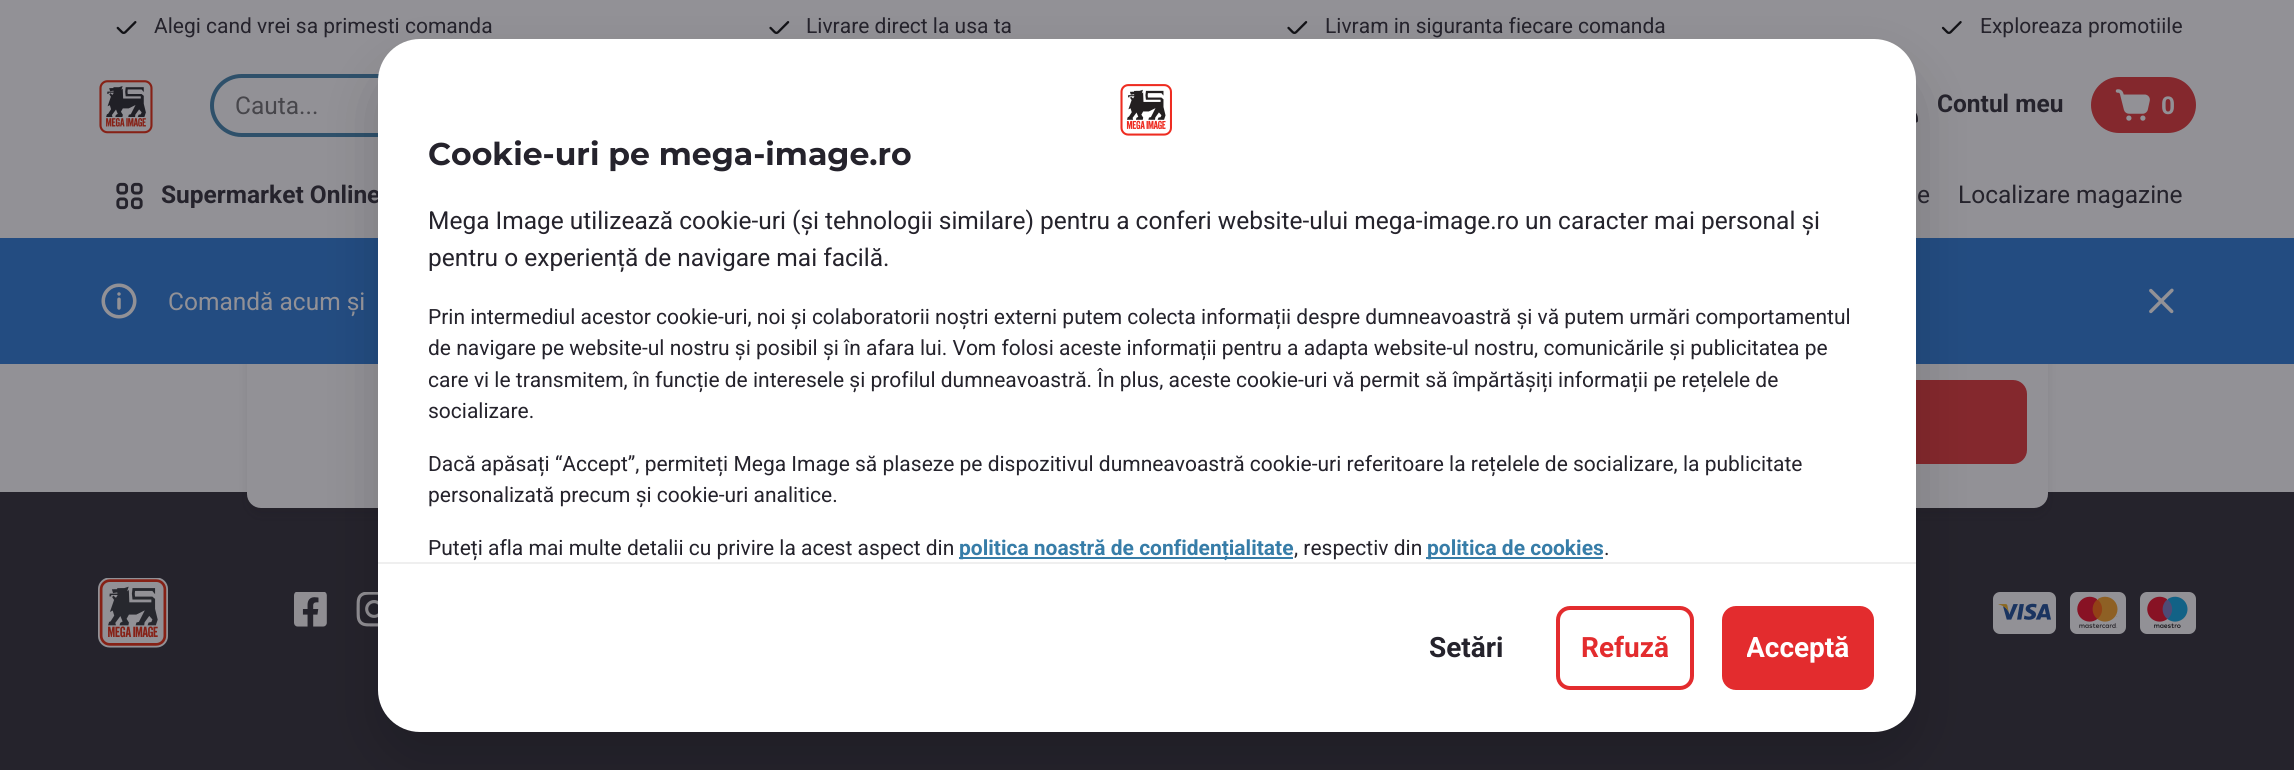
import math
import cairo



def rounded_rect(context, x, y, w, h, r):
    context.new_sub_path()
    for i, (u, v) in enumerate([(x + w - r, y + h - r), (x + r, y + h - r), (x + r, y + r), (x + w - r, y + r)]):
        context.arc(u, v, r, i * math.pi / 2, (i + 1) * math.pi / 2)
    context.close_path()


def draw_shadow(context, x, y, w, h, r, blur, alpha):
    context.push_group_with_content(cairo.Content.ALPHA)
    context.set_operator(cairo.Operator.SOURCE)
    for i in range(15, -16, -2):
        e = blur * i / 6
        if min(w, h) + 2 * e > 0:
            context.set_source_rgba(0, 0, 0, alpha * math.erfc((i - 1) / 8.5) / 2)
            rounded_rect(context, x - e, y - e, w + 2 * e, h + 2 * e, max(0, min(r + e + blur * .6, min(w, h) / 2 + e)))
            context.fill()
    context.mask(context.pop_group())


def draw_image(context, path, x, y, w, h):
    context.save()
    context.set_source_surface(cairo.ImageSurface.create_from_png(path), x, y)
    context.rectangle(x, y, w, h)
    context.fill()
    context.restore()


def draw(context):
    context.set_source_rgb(146 / 255, 145 / 255, 150 / 255)
    context.paint()
    draw_image(context, "images/1.png", 116, 21, 21, 13)
    draw_image(context, "images/2.png", 769, 21, 21, 13)
    draw_image(context, "images/2.png", 1287, 21, 21, 13)
    draw_image(context, "images/3.png", 1941, 21, 21, 13)
    draw_image(context, "images/4.png", 99, 80, 54, 54)
    rounded_rect(context, 212, 76, 1209, 59, 29.5)
    context.set_source_rgb(46 / 255, 80 / 255, 106 / 255)
    context.set_line_width(4)
    context.stroke()
    draw_image(context, "images/5.png", 1916, 113, 2, 10)
    context.set_source_rgb(132 / 255, 40 / 255, 45 / 255)
    rounded_rect(context, 2091, 77, 105, 56, 28)
    context.fill()
    draw_image(context, "images/6.png", 2115, 89, 35, 32)
    draw_image(context, "images/7.png", 116, 182, 27, 28)
    context.set_source_rgb(37 / 255, 35 / 255, 44 / 255)
    context.rectangle(0, 492, 2294, 278)
    context.fill()
    context.set_source_rgb(19 / 255, 18 / 255, 22 / 255)
    draw_shadow(context, 247, 345, 1801, 171, 14, 4.5, 0.1)
    context.set_source_rgb(146 / 255, 145 / 255, 150 / 255)
    rounded_rect(context, 247, 336, 1801, 172, 14)
    context.fill()
    context.set_source_rgb(35 / 255, 76 / 255, 129 / 255)
    context.rectangle(0, 238, 2294, 126)
    context.fill()
    draw_image(context, "images/8.png", 101, 283, 36, 36)
    draw_image(context, "images/9.png", 2149, 288, 25, 26)
    context.set_source_rgb(132 / 255, 40 / 255, 45 / 255)
    rounded_rect(context, 1591, 382, 434, 80, 12)
    context.fill_preserve()
    context.stroke()
    draw_image(context, "images/10.png", 98, 578, 70, 70)
    draw_image(context, "images/11.png", 294, 592, 33, 35)
    draw_image(context, "images/12.png", 356, 592, 22, 35)
    draw_image(context, "images/13.png", 1993, 592, 63, 42)
    draw_image(context, "images/14.png", 2070, 592, 56, 42)
    draw_image(context, "images/15.png", 2140, 592, 56, 42)
    context.set_source_rgb(0, 0, 0)
    draw_shadow(context, 378, 67, 1538, 693, 42, 28, 0.16)
    context.select_font_face("Roboto")
    context.set_font_size(21)
    context.set_source_rgb(37 / 255, 35 / 255, 44 / 255)
    context.move_to(154, 33)
    context.show_text("Alegi cand vrei sa primesti comanda")
    context.move_to(806, 33)
    context.show_text("Livrare direct la usa ta")
    context.move_to(1325, 33)
    context.show_text("Livram in siguranta fiecare comanda")
    context.move_to(1980, 33)
    context.show_text("Exploreaza promotiile")
    context.set_font_size(24.5)
    context.set_source_rgb(71 / 255, 70 / 255, 75 / 255)
    context.move_to(235, 114)
    context.show_text("Cauta...")
    context.select_font_face("Roboto", cairo.FontSlant.NORMAL, cairo.FontWeight.BOLD)
    context.set_source_rgb(37 / 255, 35 / 255, 44 / 255)
    context.move_to(1937, 112)
    context.show_text("Contul meu")
    context.set_source_rgb(146 / 255, 145 / 255, 150 / 255)
    context.move_to(2161, 114)
    context.show_text("0")
    context.set_source_rgb(37 / 255, 35 / 255, 44 / 255)
    context.move_to(161, 203)
    context.show_text("Supermarket Online")
    context.select_font_face("Roboto")
    context.move_to(1917, 203)
    context.show_text("e")
    context.move_to(1958, 203)
    context.show_text("Localizare magazine")
    context.set_source_rgb(146 / 255, 145 / 255, 150 / 255)
    context.move_to(168, 310)
    context.show_text("Comandă acum și")
    context.set_source_rgb(1, 1, 1)
    rounded_rect(context, 378, 39, 1538, 693, 42)
    context.fill()
    draw_image(context, "images/16.png", 1120, 84, 52, 52)
    context.select_font_face("Montserrat Thin")
    context.set_font_size(31.5)
    context.set_source_rgb(37 / 255, 35 / 255, 44 / 255)
    context.move_to(428, 165)
    context.show_text("Cookie-uri pe mega-image.ro")
    context.select_font_face("Roboto")
    context.set_font_size(24.5)
    context.move_to(428, 229)
    context.show_text("Mega Image utilizează cookie-uri (și tehnologii similare) pentru a conferi website-ului mega-image.ro un caracter mai personal și")
    context.move_to(428, 266)
    context.show_text("pentru o experiență de navigare mai facilă.")
    context.set_font_size(21)
    context.move_to(428, 324)
    context.show_text("Prin intermediul acestor cookie-uri, noi și colaboratorii noștri externi putem colecta informații despre dumneavoastră și vă putem urmări comportamentul")
    context.move_to(428, 355)
    context.show_text("de navigare pe website-ul nostru și posibil și în afara lui. Vom folosi aceste informații pentru a adapta website-ul nostru, comunicările și publicitatea pe")
    context.move_to(428, 387)
    context.show_text("care vi le transmitem, în funcție de interesele și profilul dumneavoastră. În plus, aceste cookie-uri vă permit să împărtășiți informații pe rețelele de")
    context.move_to(428, 418)
    context.show_text("socializare.")
    context.move_to(428, 471)
    context.show_text("Dacă apăsați “Accept”, permiteți Mega Image să plaseze pe dispozitivul dumneavoastră cookie-uri referitoare la rețelele de socializare, la publicitate")
    context.move_to(428, 502)
    context.show_text("personalizată precum și cookie-uri analitice.")
    context.move_to(428, 555)
    context.show_text("Puteți afla mai multe detalii cu privire la acest aspect din")
    context.set_source_rgb(55 / 255, 125 / 255, 168 / 255)
    context.rectangle(959, 557, 334, 2)
    context.fill()
    context.select_font_face("Roboto", cairo.FontSlant.NORMAL, cairo.FontWeight.BOLD)
    context.move_to(959, 555)
    context.show_text("politica noastră de confidențialitate")
    context.select_font_face("Roboto")
    context.set_source_rgb(37 / 255, 35 / 255, 44 / 255)
    context.move_to(1294, 555)
    context.show_text(", respectiv din")
    context.set_source_rgb(55 / 255, 125 / 255, 168 / 255)
    context.rectangle(1426, 557, 177, 2)
    context.fill()
    context.select_font_face("Roboto", cairo.FontSlant.NORMAL, cairo.FontWeight.BOLD)
    context.move_to(1427, 555)
    context.show_text("politica de cookies")
    context.select_font_face("Roboto")
    context.set_source_rgb(37 / 255, 35 / 255, 44 / 255)
    context.move_to(1604, 555)
    context.show_text(".")
    context.set_source_rgb(239 / 255, 239 / 255, 239 / 255)
    context.rectangle(378, 562, 1538, 2)
    context.fill()
    context.select_font_face("Roboto", cairo.FontSlant.NORMAL, cairo.FontWeight.BOLD)
    context.set_font_size(28)
    context.set_source_rgb(37 / 255, 35 / 255, 44 / 255)
    context.move_to(1429, 657)
    context.show_text("Setări")
    rounded_rect(context, 1558, 608, 134, 80, 12)
    context.set_source_rgb(227 / 255, 44 / 255, 46 / 255)
    context.stroke()
    context.move_to(1581, 657)
    context.show_text("Refuză")
    rounded_rect(context, 1724, 608, 148, 80, 12)
    context.fill_preserve()
    context.stroke()
    context.save()
    context.rectangle(1747, 632, 103, 33)
    context.clip()
    context.set_source_rgb(1, 1, 1)
    context.move_to(1746, 657)
    context.show_text("Acceptă")
    context.restore()


surface = cairo.ImageSurface(cairo.Format.RGB24, 2294, 770)
context = cairo.Context(surface)
options = cairo.FontOptions()
options.set_hint_metrics(cairo.HintMetrics.OFF)
options.set_hint_style(cairo.HintStyle.NONE)
context.set_font_options(options)
context.set_miter_limit(4)
draw(context)
surface.write_to_png("out.png")
